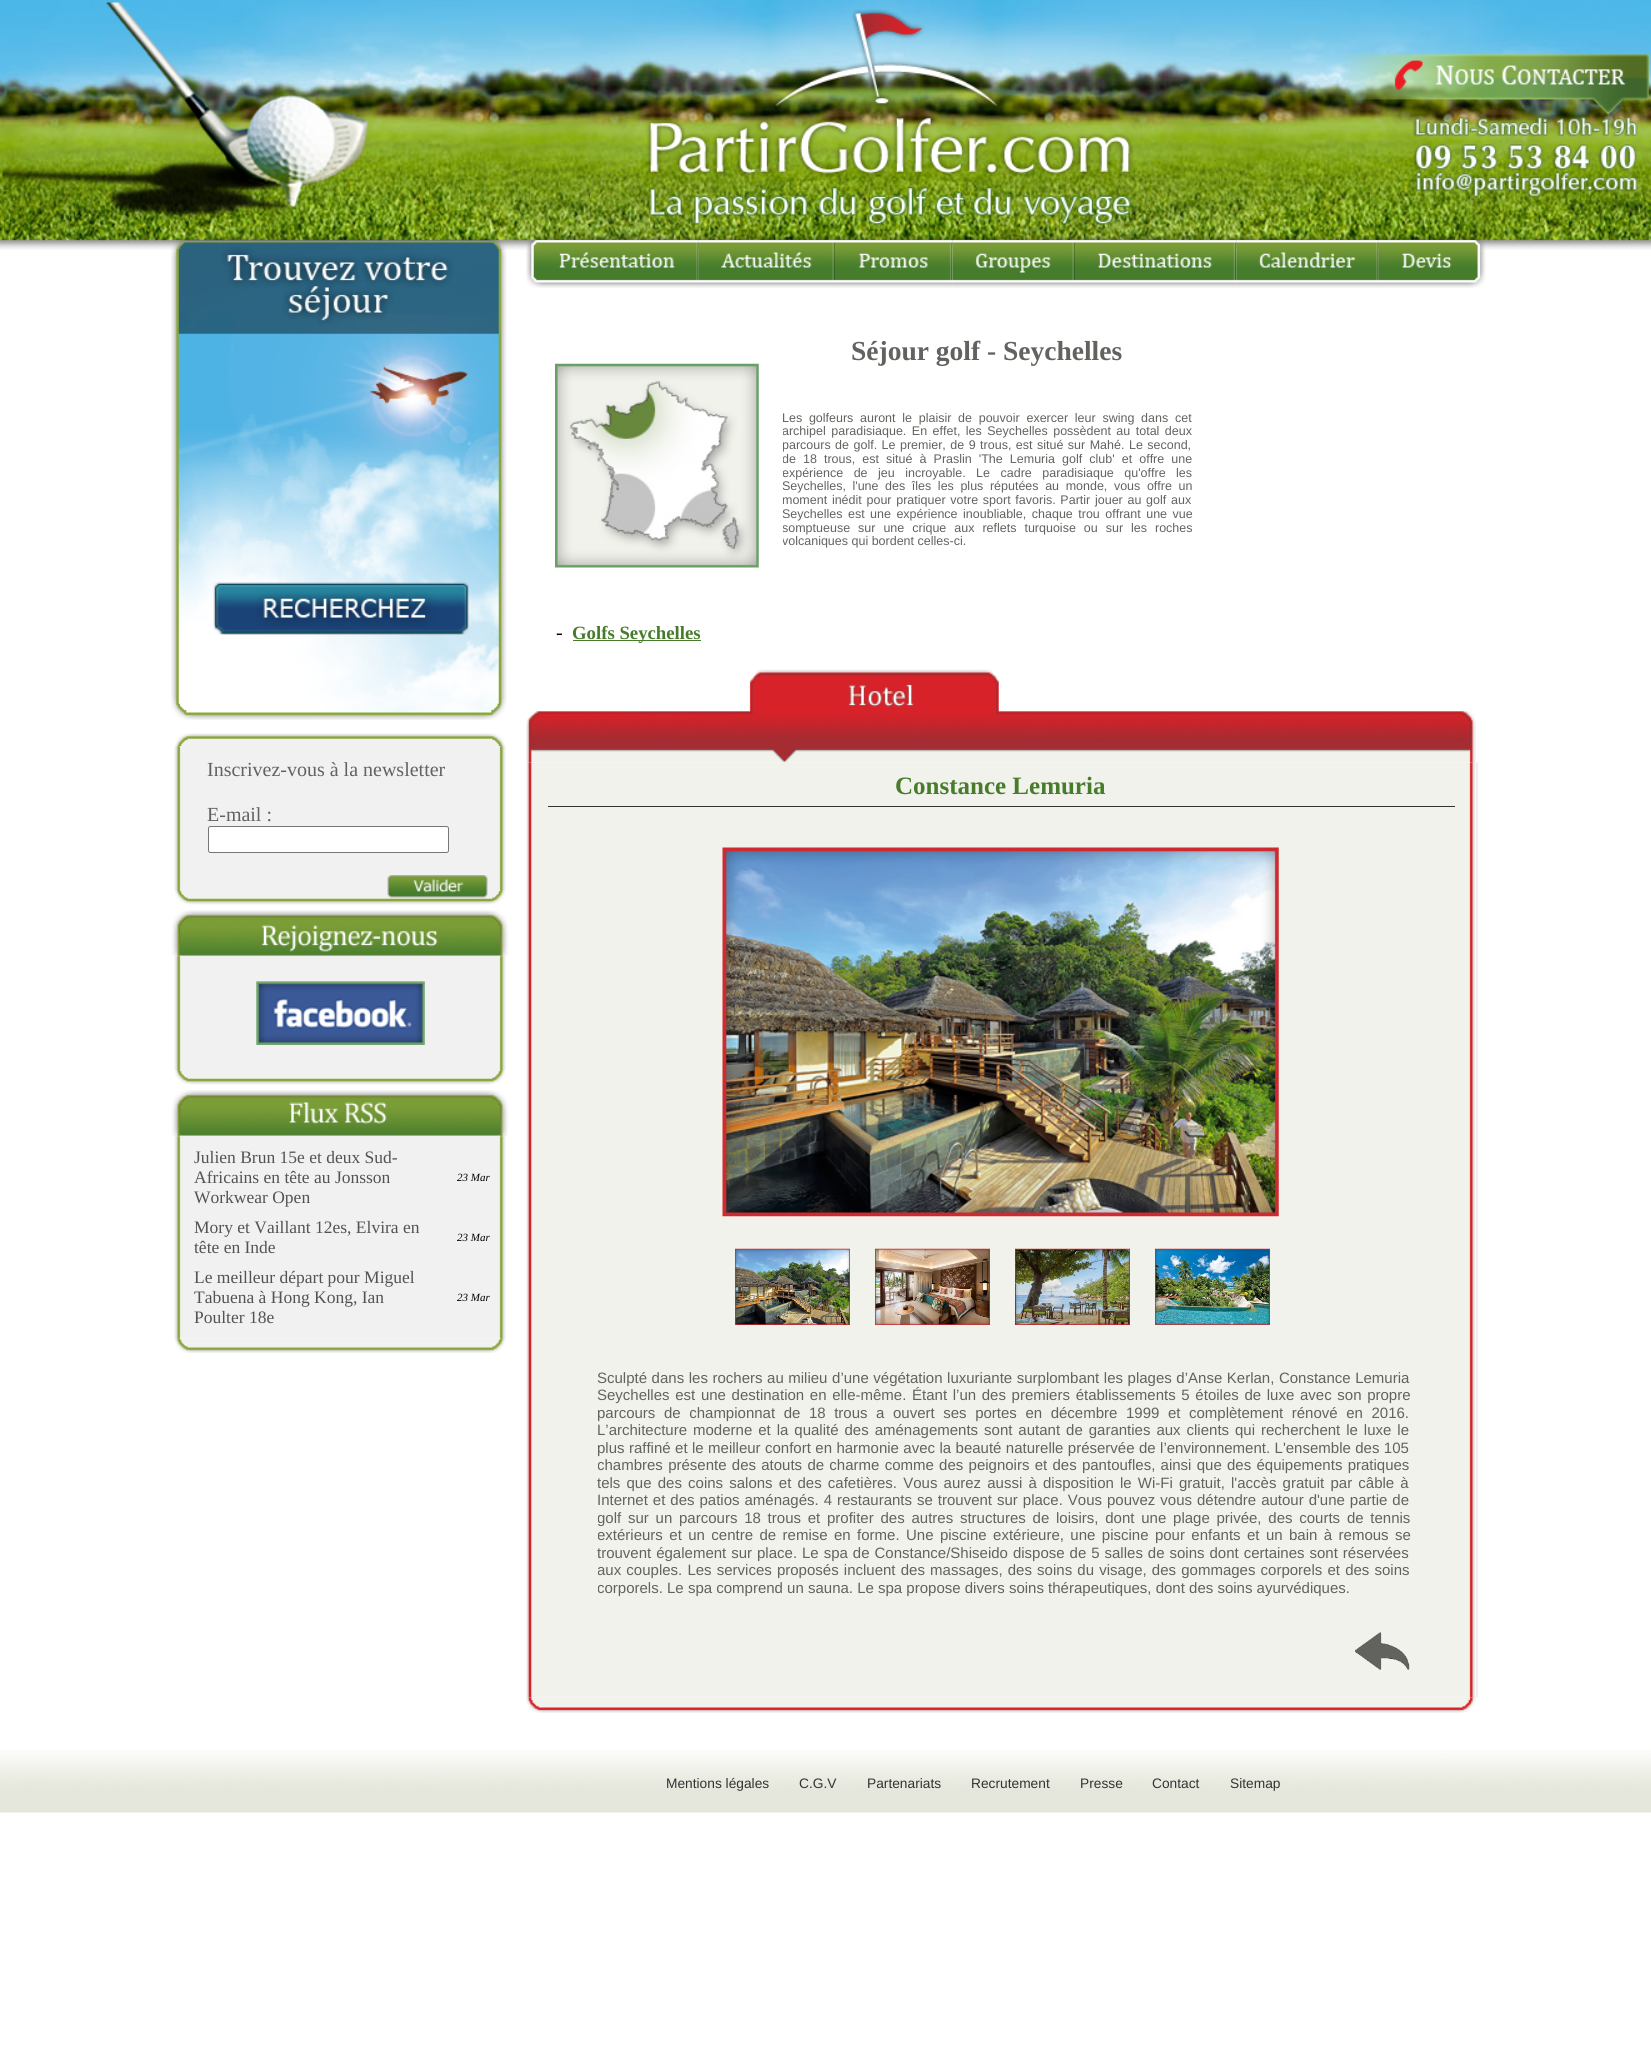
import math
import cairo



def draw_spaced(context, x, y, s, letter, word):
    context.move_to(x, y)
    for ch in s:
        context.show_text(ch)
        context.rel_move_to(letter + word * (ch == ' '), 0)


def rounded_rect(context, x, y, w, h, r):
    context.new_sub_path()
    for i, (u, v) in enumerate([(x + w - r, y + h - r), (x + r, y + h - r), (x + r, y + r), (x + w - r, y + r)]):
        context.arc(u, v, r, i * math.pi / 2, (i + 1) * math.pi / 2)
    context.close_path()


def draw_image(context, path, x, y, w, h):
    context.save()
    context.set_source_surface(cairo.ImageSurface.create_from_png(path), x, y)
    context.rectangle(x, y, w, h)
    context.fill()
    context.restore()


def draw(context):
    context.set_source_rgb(1, 1, 1)
    context.paint()
    draw_image(context, "images/1.png", 0, 0, 1651, 250)
    draw_image(context, "images/2.png", 2, 2, 367, 217)
    draw_image(context, "images/3.png", 646, 9, 487, 216)
    draw_image(context, "images/4.png", 1345, 54, 304, 144)
    draw_image(context, "images/5.png", 526, 235, 173, 53)
    draw_image(context, "images/6.png", 698, 235, 137, 53)
    draw_image(context, "images/7.png", 835, 235, 118, 53)
    draw_image(context, "images/8.png", 952, 235, 123, 53)
    draw_image(context, "images/9.png", 1075, 235, 162, 53)
    draw_image(context, "images/10.png", 1236, 235, 143, 53)
    draw_image(context, "images/11.png", 1378, 235, 108, 53)
    draw_image(context, "images/12.png", 171, 236, 336, 484)
    draw_image(context, "images/13.png", 213, 582, 256, 53)
    draw_image(context, "images/14.png", 175, 733, 330, 14)
    draw_image(context, "images/15.png", 174, 746, 332, 144)
    context.set_source_rgb(1, 1, 1)
    rounded_rect(context, 208.5, 826.5, 240, 26, 2)
    context.fill_preserve()
    context.set_source_rgb(118 / 255, 118 / 255, 118 / 255)
    context.set_line_width(1)
    context.stroke()
    draw_image(context, "images/17.png", 175, 890, 330, 15)
    draw_image(context, "images/16.png", 387, 875, 101, 23)
    draw_image(context, "images/18.png", 172, 910, 336, 47)
    draw_image(context, "images/19.png", 174, 956, 332, 114)
    draw_image(context, "images/20.png", 256, 981, 169, 64)
    draw_image(context, "images/17.png", 175, 1070, 330, 15)
    draw_image(context, "images/21.png", 172, 1090, 336, 47)
    draw_image(context, "images/22.png", 174, 1136, 332, 203)
    draw_image(context, "images/23.png", 175, 1338, 330, 15)
    draw_image(context, "images/24.png", 555, 363, 204, 205)
    context.set_source_rgb(71 / 255, 124 / 255, 44 / 255)
    context.rectangle(573, 640, 128, 1)
    context.fill()
    draw_image(context, "images/25.png", 526, 669, 950, 94)
    draw_image(context, "images/26.png", 526, 762, 952, 936)
    context.set_source_rgb(51 / 255, 51 / 255, 51 / 255)
    context.rectangle(548, 806, 907, 1)
    context.fill()
    draw_image(context, "images/27.png", 722, 847, 557, 370)
    draw_image(context, "images/28.png", 735, 1248, 115, 77)
    draw_image(context, "images/29.png", 875, 1248, 115, 77)
    draw_image(context, "images/30.png", 1015, 1248, 115, 77)
    draw_image(context, "images/31.png", 1155, 1248, 115, 77)
    draw_image(context, "images/32.png", 1355, 1632, 55, 38)
    draw_image(context, "images/33.png", 526, 1697, 950, 16)
    draw_image(context, "images/34.png", 0, 1750, 1651, 63)
    context.select_font_face("Liberation Serif")
    context.set_font_size(20)
    context.set_source_rgb(98 / 255, 99 / 255, 95 / 255)
    context.move_to(207, 776)
    context.show_text("Inscrivez-vous à la newsletter")
    context.move_to(207, 821)
    context.show_text("E-mail :")
    context.set_font_size(17.5)
    context.set_source_rgb(83 / 255, 83 / 255, 83 / 255)
    context.move_to(194, 1163)
    context.show_text("Julien Brun 15e et deux Sud-")
    context.move_to(194, 1183)
    context.show_text("Africains en tête au Jonsson")
    context.move_to(194, 1203)
    context.show_text("Workwear Open")
    context.select_font_face("Liberation Serif", cairo.FontSlant.ITALIC)
    context.set_font_size(11)
    context.set_source_rgb(0, 0, 0)
    context.move_to(457, 1181)
    context.show_text("23 Mar")
    context.select_font_face("Liberation Serif")
    context.set_font_size(17.5)
    context.set_source_rgb(83 / 255, 83 / 255, 83 / 255)
    context.move_to(194, 1233)
    context.show_text("Mory et Vaillant 12es, Elvira en")
    context.move_to(194, 1253)
    context.show_text("tête en Inde")
    context.select_font_face("Liberation Serif", cairo.FontSlant.ITALIC)
    context.set_font_size(11)
    context.set_source_rgb(0, 0, 0)
    context.move_to(457, 1241)
    context.show_text("23 Mar")
    context.select_font_face("Liberation Serif")
    context.set_font_size(17.5)
    context.set_source_rgb(83 / 255, 83 / 255, 83 / 255)
    context.move_to(194, 1283)
    context.show_text("Le meilleur départ pour Miguel")
    context.move_to(194, 1303)
    context.show_text("Tabuena à Hong Kong, Ian")
    context.move_to(194, 1323)
    context.show_text("Poulter 18e")
    context.select_font_face("Liberation Serif", cairo.FontSlant.ITALIC)
    context.set_font_size(11)
    context.set_source_rgb(0, 0, 0)
    context.move_to(457, 1301)
    context.show_text("23 Mar")
    context.select_font_face("Liberation Serif", cairo.FontSlant.NORMAL, cairo.FontWeight.BOLD)
    context.set_font_size(27.5)
    context.set_source_rgb(98 / 255, 99 / 255, 95 / 255)
    context.move_to(851, 360)
    context.show_text("Séjour golf - Seychelles")
    context.save()
    context.rectangle(783, 410, 410, 163)
    context.clip()
    context.select_font_face("Liberation Sans")
    context.set_font_size(12.5)
    draw_spaced(context, 782, 422, "Les golfeurs auront le plaisir de pouvoir exercer leur swing dans cet", 0, 3.25)
    draw_spaced(context, 782, 435, "archipel paradisiaque. En effet, les Seychelles possèdent au total deux", 0, 2)
    draw_spaced(context, 782, 449, "parcours de golf. Le premier, de 9 trous, est situé sur Mahé. Le second,", 0, 1)
    draw_spaced(context, 782, 463, "de 18 trous, est situé à Praslin 'The Lemuria golf club' et offre une", 0, 3.6)
    draw_spaced(context, 782, 477, "expérience de jeu incroyable. Le cadre paradisiaque qu'offre les", 0, 7)
    draw_spaced(context, 782, 490, "Seychelles, l'une des îles les plus réputées au monde, vous offre un", 0, 3.1)
    draw_spaced(context, 782, 504, "moment inédit pour pratiquer votre sport favoris. Partir jouer au golf aux", 0, 1.25)
    draw_spaced(context, 782, 518, "Seychelles est une expérience inoubliable, chaque trou offrant une vue", 0, 2)
    draw_spaced(context, 782, 532, "somptueuse sur une crique aux reflets turquoise ou sur les roches", 0, 4.5)
    context.move_to(782, 545)
    context.show_text("volcaniques qui bordent celles-ci.")
    context.restore()
    context.select_font_face("Liberation Serif")
    context.set_font_size(20)
    context.set_source_rgb(0, 0, 0)
    context.move_to(556, 639)
    context.show_text("-")
    context.select_font_face("Liberation Serif", cairo.FontSlant.NORMAL, cairo.FontWeight.BOLD)
    context.set_font_size(18.75)
    context.set_source_rgb(71 / 255, 124 / 255, 44 / 255)
    context.move_to(572, 639)
    context.show_text("Golfs Seychelles")
    context.set_font_size(25)
    context.move_to(895, 794)
    context.show_text("Constance Lemuria")
    context.select_font_face("Liberation Sans")
    context.set_font_size(15)
    context.set_source_rgb(98 / 255, 99 / 255, 95 / 255)
    draw_spaced(context, 597, 1383, "Sculpté dans les rochers au milieu d’une végétation luxuriante surplombant les plages d’Anse Kerlan, Constance Lemuria", 0, 0.4)
    draw_spaced(context, 597, 1400, "Seychelles est une destination en elle-même. Étant l’un des premiers établissements 5 étoiles de luxe avec son propre", 0, 1.5)
    context.save()
    context.rectangle(598, 1369, 817, 245)
    context.clip()
    draw_spaced(context, 597, 1418, "parcours de championnat de 18 trous a ouvert ses portes en décembre 1999 et complètement rénové en 2016.", 0, 4.4)
    context.restore()
    draw_spaced(context, 597, 1435, "L’architecture moderne et la qualité des aménagements sont autant de garanties aux clients qui recherchent le luxe le", 0, 1.8)
    context.save()
    context.rectangle(598, 1369, 817, 245)
    context.clip()
    draw_spaced(context, 597, 1453, "plus raffiné et le meilleur confort en harmonie avec la beauté naturelle préservée de l’environnement. L'ensemble des 105", 0, 0.25)
    draw_spaced(context, 597, 1470, "chambres présente des atouts de charme comme des peignoirs et des pantoufles, ainsi que des équipements pratiques", 0, 1.1)
    context.restore()
    draw_spaced(context, 597, 1488, "tels que des coins salons et des cafetières. Vous aurez aussi à disposition le Wi-Fi gratuit, l'accès gratuit par câble à", 0, 2)
    draw_spaced(context, 597, 1505, "Internet et des patios aménagés. 4 restaurants se trouvent sur place. Vous pouvez vous détendre autour d'une partie de", 0, 0.8)
    context.save()
    context.rectangle(598, 1369, 817, 245)
    context.clip()
    draw_spaced(context, 597, 1523, "golf sur un parcours 18 trous et profiter des autres structures de loisirs, dont une plage privée, des courts de tennis", 0, 2.6)
    draw_spaced(context, 597, 1540, "extérieurs et un centre de remise en forme. Une piscine extérieure, une piscine pour enfants et un bain à remous se", 0, 2.25)
    context.restore()
    draw_spaced(context, 597, 1558, "trouvent également sur place. Le spa de Constance/Shiseido dispose de 5 salles de soins dont certaines sont réservées", 0, 0.8)
    context.save()
    context.rectangle(598, 1369, 817, 245)
    context.clip()
    draw_spaced(context, 597, 1575, "aux couples. Les services proposés incluent des massages, des soins du visage, des gommages corporels et des soins", 0, 1)
    context.move_to(597, 1593)
    context.show_text("corporels. Le spa comprend un sauna. Le spa propose divers soins thérapeutiques, dont des soins ayurvédiques.")
    context.restore()
    context.set_font_size(13.75)
    context.set_source_rgb(51 / 255, 51 / 255, 51 / 255)
    context.move_to(666, 1788)
    context.show_text("Mentions légales")
    context.move_to(799, 1788)
    context.show_text("C.G.V")
    context.move_to(867, 1788)
    context.show_text("Partenariats")
    context.move_to(971, 1788)
    context.show_text("Recrutement")
    context.move_to(1080, 1788)
    context.show_text("Presse")
    context.move_to(1152, 1788)
    context.show_text("Contact")
    context.move_to(1230, 1788)
    context.show_text("Sitemap")


surface = cairo.ImageSurface(cairo.Format.RGB24, 1651, 2062)
context = cairo.Context(surface)
options = cairo.FontOptions()
options.set_hint_metrics(cairo.HintMetrics.OFF)
options.set_hint_style(cairo.HintStyle.NONE)
context.set_font_options(options)
context.set_miter_limit(4)
draw(context)
surface.write_to_png("out.png")
